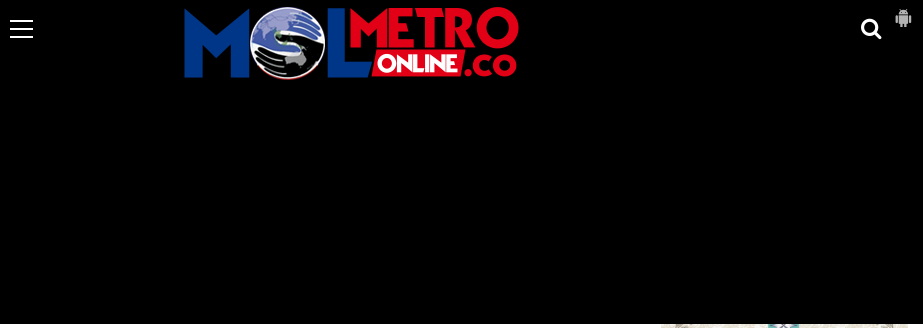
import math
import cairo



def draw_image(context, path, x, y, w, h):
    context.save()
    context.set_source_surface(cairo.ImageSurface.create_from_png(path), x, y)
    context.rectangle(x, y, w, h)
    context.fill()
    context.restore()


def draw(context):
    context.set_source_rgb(1, 1, 1)
    context.paint()
    context.set_source_rgb(0, 0, 0)
    context.rectangle(0, 0, 923, 324)
    context.fill()
    draw_image(context, "images/1.png", 184, 7, 335, 73)
    context.set_source_rgb(1, 1, 1)
    context.rectangle(10, 20, 23, 2)
    context.fill()
    context.rectangle(10, 28, 23, 2)
    context.fill()
    context.rectangle(10, 36, 23, 2)
    context.fill()
    draw_image(context, "images/2.png", 861, 18, 21, 22)
    draw_image(context, "images/3.png", 895, 9, 17, 18)
    draw_image(context, "images/4.png", 661, 324, 247, 4)


surface = cairo.ImageSurface(cairo.Format.RGB24, 923, 328)
context = cairo.Context(surface)
options = cairo.FontOptions()
options.set_hint_metrics(cairo.HintMetrics.OFF)
options.set_hint_style(cairo.HintStyle.NONE)
context.set_font_options(options)
context.set_miter_limit(4)
draw(context)
surface.write_to_png("out.png")
